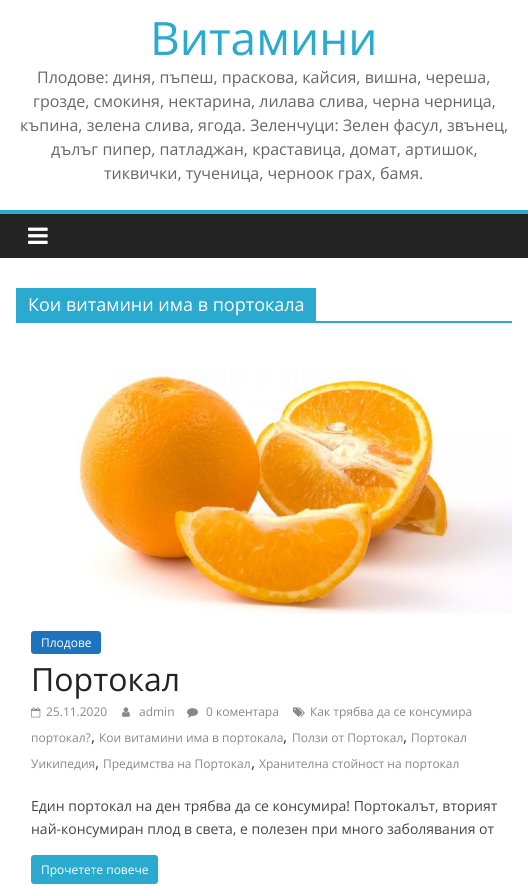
import math
import cairo



def rounded_rect(context, x, y, w, h, r):
    context.new_sub_path()
    for i, (u, v) in enumerate([(x + w - r, y + h - r), (x + r, y + h - r), (x + r, y + r), (x + w - r, y + r)]):
        context.arc(u, v, r, i * math.pi / 2, (i + 1) * math.pi / 2)
    context.close_path()


def draw_image(context, path, x, y, w, h):
    context.save()
    context.set_source_surface(cairo.ImageSurface.create_from_png(path), x, y)
    context.rectangle(x, y, w, h)
    context.fill()
    context.restore()


def draw(context):
    context.set_source_rgb(1, 1, 1)
    context.paint()
    context.set_source_rgb(35 / 255, 35 / 255, 35 / 255)
    context.rectangle(0, 214, 528, 44)
    context.fill()
    context.set_source_rgb(41 / 255, 170 / 255, 206 / 255)
    context.rectangle(0, 210, 528, 4)
    context.fill()
    draw_image(context, "images/1.png", 28, 227, 20, 17)
    context.rectangle(16, 321, 496, 2)
    context.fill()
    context.rectangle(16, 288, 300, 33)
    context.fill()
    draw_image(context, "images/2.png", 76, 368, 436, 246)
    context.set_source_rgb(30 / 255, 115 / 255, 190 / 255)
    rounded_rect(context, 31, 631, 70, 23, 3)
    context.fill()
    draw_image(context, "images/3.png", 293, 707, 12, 10)
    draw_image(context, "images/4.png", 31, 707, 10, 11)
    draw_image(context, "images/5.png", 122, 707, 8, 10)
    draw_image(context, "images/6.png", 187, 708, 11, 10)
    context.set_source_rgb(41 / 255, 170 / 255, 206 / 255)
    rounded_rect(context, 31, 855, 127, 29, 3)
    context.fill()
    context.select_font_face("Open Sans")
    context.set_font_size(46)
    context.move_to(150, 55)
    context.show_text("Витамини")
    context.set_font_size(16)
    context.set_source_rgb(102 / 255, 102 / 255, 102 / 255)
    context.move_to(37, 83)
    context.show_text("Плодове: диня, пъпеш, праскова, кайсия, вишна, череша,")
    context.move_to(33, 107)
    context.show_text("грозде, смокиня, нектарина, лилава слива, черна черница,")
    context.move_to(20, 131)
    context.show_text("къпина, зелена слива, ягода. Зеленчуци: Зелен фасул, звънец,")
    context.move_to(51, 155)
    context.show_text("дълъг пипер, патладжан, краставица, домат, артишок,")
    context.move_to(104, 179)
    context.show_text("тиквички, тученица, черноок грах, бамя.")
    context.set_font_size(18)
    context.set_source_rgb(1, 1, 1)
    context.move_to(28, 311)
    context.show_text("Кои витамини има в портокала")
    context.set_font_size(12)
    context.move_to(41, 647)
    context.show_text("Плодове")
    context.set_font_size(32)
    context.set_source_rgb(35 / 255, 35 / 255, 35 / 255)
    context.move_to(31, 691)
    context.show_text("Портокал")
    context.set_font_size(12)
    context.set_source_rgb(136 / 255, 136 / 255, 136 / 255)
    context.move_to(310, 716)
    context.show_text("Как трябва да се консумира")
    context.move_to(31, 742)
    context.show_text("портокал?")
    context.set_font_size(16)
    context.set_source_rgb(68 / 255, 68 / 255, 68 / 255)
    context.move_to(91, 742)
    context.show_text(",")
    context.set_font_size(12)
    context.set_source_rgb(136 / 255, 136 / 255, 136 / 255)
    context.move_to(99, 742)
    context.show_text("Кои витамини има в портокала")
    context.set_font_size(16)
    context.set_source_rgb(68 / 255, 68 / 255, 68 / 255)
    context.move_to(283, 742)
    context.show_text(",")
    context.set_font_size(12)
    context.set_source_rgb(136 / 255, 136 / 255, 136 / 255)
    context.move_to(292, 742)
    context.show_text("Ползи от Портокал")
    context.set_font_size(16)
    context.set_source_rgb(68 / 255, 68 / 255, 68 / 255)
    context.move_to(403, 742)
    context.show_text(",")
    context.set_font_size(12)
    context.set_source_rgb(136 / 255, 136 / 255, 136 / 255)
    context.move_to(411, 742)
    context.show_text("Портокал")
    context.move_to(31, 768)
    context.show_text("Уикипедия")
    context.set_font_size(16)
    context.set_source_rgb(68 / 255, 68 / 255, 68 / 255)
    context.move_to(95, 768)
    context.show_text(",")
    context.set_font_size(12)
    context.set_source_rgb(136 / 255, 136 / 255, 136 / 255)
    context.move_to(103, 768)
    context.show_text("Предимства на Портокал")
    context.set_font_size(16)
    context.set_source_rgb(68 / 255, 68 / 255, 68 / 255)
    context.move_to(251, 768)
    context.show_text(",")
    context.set_font_size(12)
    context.set_source_rgb(136 / 255, 136 / 255, 136 / 255)
    context.move_to(259, 768)
    context.show_text("Хранителна стойност на портокал")
    context.move_to(46, 716)
    context.show_text("25.11.2020")
    context.move_to(139, 716)
    context.show_text("admin")
    context.move_to(206, 716)
    context.show_text("0 коментара")
    context.set_font_size(14)
    context.set_source_rgb(68 / 255, 68 / 255, 68 / 255)
    context.move_to(31, 811)
    context.show_text("Един портокал на ден трябва да се консумира! Портокалът, вторият")
    context.move_to(31, 834)
    context.show_text("най-консумиран плод в света, е полезен при много заболявания от")
    context.set_font_size(12)
    context.set_source_rgb(1, 1, 1)
    context.move_to(41, 874)
    context.show_text("Прочетете повече")


surface = cairo.ImageSurface(cairo.Format.RGB24, 528, 888)
context = cairo.Context(surface)
options = cairo.FontOptions()
options.set_hint_metrics(cairo.HintMetrics.OFF)
options.set_hint_style(cairo.HintStyle.NONE)
context.set_font_options(options)
context.set_miter_limit(4)
draw(context)
surface.write_to_png("out.png")
